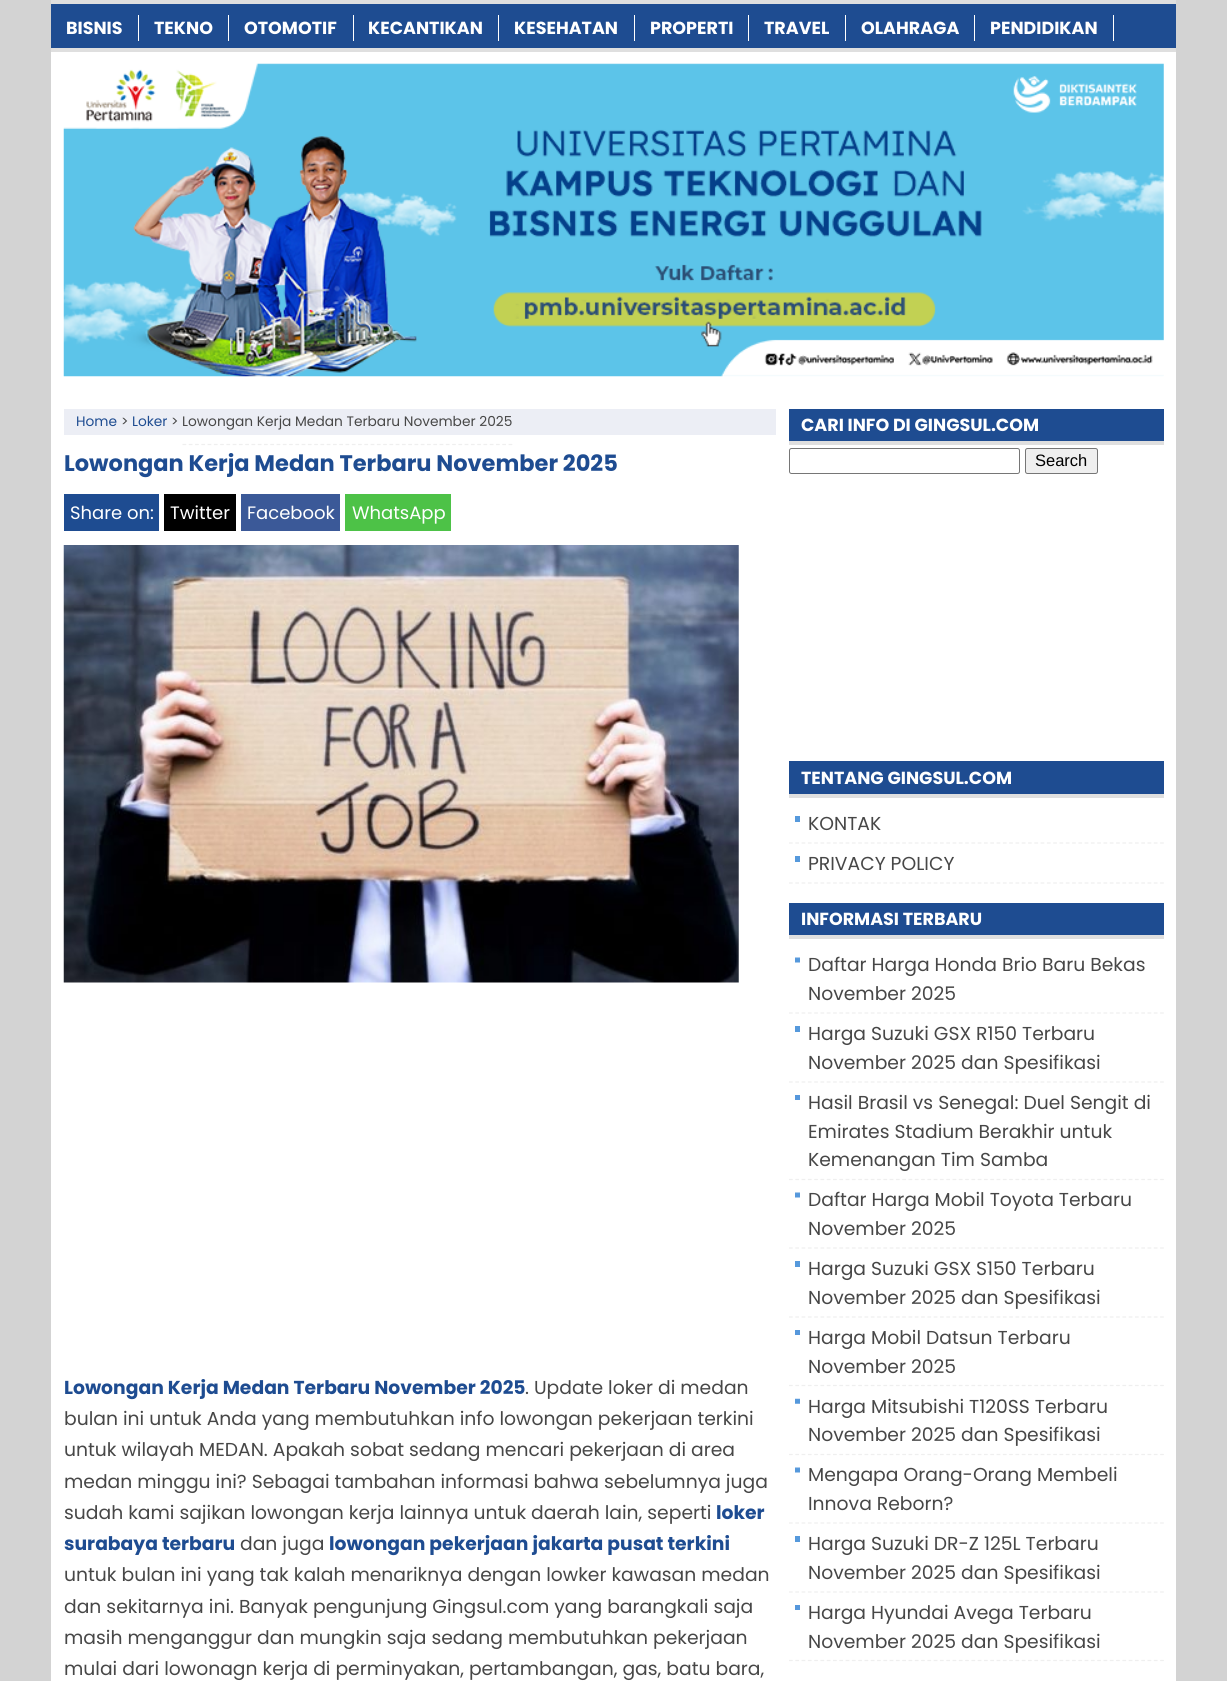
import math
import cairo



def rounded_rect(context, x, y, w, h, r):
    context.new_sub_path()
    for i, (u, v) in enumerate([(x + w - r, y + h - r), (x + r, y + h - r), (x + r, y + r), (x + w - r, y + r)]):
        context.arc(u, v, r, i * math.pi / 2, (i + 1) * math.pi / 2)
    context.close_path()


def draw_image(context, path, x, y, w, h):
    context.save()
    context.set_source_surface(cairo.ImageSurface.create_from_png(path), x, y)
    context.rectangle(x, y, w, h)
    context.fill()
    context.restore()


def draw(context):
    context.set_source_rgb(211 / 255, 211 / 255, 211 / 255)
    context.paint()
    context.set_source_rgb(1, 1, 1)
    context.rectangle(51, 52, 1125, 1629)
    context.fill()
    context.set_source_rgb(30 / 255, 76 / 255, 145 / 255)
    context.rectangle(51, 4, 1125, 44)
    context.fill()
    context.set_source_rgb(223 / 255, 223 / 255, 223 / 255)
    context.rectangle(51, 0, 1125, 4)
    context.fill()
    context.rectangle(51, 48, 1125, 4)
    context.fill()
    context.set_source_rgb(1, 1, 1)
    context.rectangle(138, 15, 1, 26)
    context.fill()
    context.rectangle(228, 15, 1, 26)
    context.fill()
    context.rectangle(353, 15, 1, 26)
    context.fill()
    context.rectangle(498, 15, 1, 26)
    context.fill()
    context.rectangle(634, 15, 1, 26)
    context.fill()
    context.rectangle(748, 15, 1, 26)
    context.fill()
    context.rectangle(845, 15, 1, 26)
    context.fill()
    context.rectangle(974, 15, 1, 26)
    context.fill()
    context.rectangle(1113, 15, 1, 26)
    context.fill()
    draw_image(context, "images/1.png", 63, 63, 1101, 314)
    context.set_source_rgb(236 / 255, 238 / 255, 245 / 255)
    context.rectangle(64, 409, 712, 26)
    context.fill()
    context.new_path()
    context.move_to(182.5, 444.5)
    context.line_to(512.5, 444.5)
    context.set_source_rgb(239 / 255, 239 / 255, 239 / 255)
    context.set_line_width(1.2)
    context.set_dash([3.75, 2.52])
    context.stroke()
    context.set_source_rgb(30 / 255, 76 / 255, 145 / 255)
    context.rectangle(64, 494, 95, 37)
    context.fill()
    context.set_source_rgb(0, 0, 0)
    context.rectangle(164, 494, 72, 37)
    context.fill()
    context.set_source_rgb(59 / 255, 89 / 255, 152 / 255)
    context.rectangle(241, 494, 99, 37)
    context.fill()
    context.set_source_rgb(77 / 255, 194 / 255, 71 / 255)
    context.rectangle(345, 494, 106, 37)
    context.fill()
    draw_image(context, "images/2.png", 63, 545, 676, 438)
    context.set_source_rgb(30 / 255, 76 / 255, 145 / 255)
    context.rectangle(789, 409, 375, 32)
    context.fill()
    context.set_source_rgb(223 / 255, 223 / 255, 223 / 255)
    context.rectangle(789, 441, 375, 4)
    context.fill()
    rounded_rect(context, 789.5, 448.5, 230, 25, 2)
    context.set_source_rgb(118 / 255, 118 / 255, 118 / 255)
    context.set_line_width(1)
    context.set_dash([])
    context.stroke()
    context.set_source_rgb(239 / 255, 239 / 255, 239 / 255)
    rounded_rect(context, 1025.5, 448.5, 72, 25, 2)
    context.fill_preserve()
    context.set_source_rgb(118 / 255, 118 / 255, 118 / 255)
    context.stroke()
    context.set_source_rgb(30 / 255, 76 / 255, 145 / 255)
    context.rectangle(789, 761, 375, 33)
    context.fill()
    context.set_source_rgb(223 / 255, 223 / 255, 223 / 255)
    context.rectangle(789, 794, 375, 4)
    context.fill()
    context.set_source_rgb(86 / 255, 153 / 255, 220 / 255)
    context.rectangle(795, 816, 5, 6)
    context.fill()
    context.new_path()
    context.move_to(789, 843)
    context.line_to(1164, 843)
    context.set_source_rgb(239 / 255, 239 / 255, 239 / 255)
    context.set_line_width(1.2)
    context.set_dash([3.75, 2.54])
    context.stroke()
    context.set_source_rgb(86 / 255, 153 / 255, 220 / 255)
    context.rectangle(795, 856, 5, 6)
    context.fill()
    context.new_path()
    context.move_to(789, 883)
    context.line_to(1164, 883)
    context.set_source_rgb(239 / 255, 239 / 255, 239 / 255)
    context.stroke()
    context.set_source_rgb(30 / 255, 76 / 255, 145 / 255)
    context.rectangle(789, 903, 375, 32)
    context.fill()
    context.set_source_rgb(223 / 255, 223 / 255, 223 / 255)
    context.rectangle(789, 935, 375, 4)
    context.fill()
    draw_image(context, "images/3.png", 795, 957, 5, 6)
    context.new_path()
    context.move_to(789, 1013)
    context.line_to(1164, 1013)
    context.set_source_rgb(239 / 255, 239 / 255, 239 / 255)
    context.stroke()
    context.set_source_rgb(86 / 255, 153 / 255, 220 / 255)
    context.rectangle(795, 1026, 5, 6)
    context.fill()
    context.new_path()
    context.move_to(789, 1082)
    context.line_to(1164, 1082)
    context.set_source_rgb(239 / 255, 239 / 255, 239 / 255)
    context.stroke()
    context.set_source_rgb(86 / 255, 152 / 255, 220 / 255)
    context.rectangle(795, 1095, 5, 5)
    context.fill()
    context.new_path()
    context.move_to(789, 1179.5)
    context.line_to(1164, 1179.5)
    context.set_source_rgb(239 / 255, 239 / 255, 239 / 255)
    context.stroke()
    draw_image(context, "images/3.png", 795, 1192, 5, 6)
    context.new_path()
    context.move_to(789, 1248)
    context.line_to(1164, 1248)
    context.stroke()
    context.set_source_rgb(86 / 255, 153 / 255, 220 / 255)
    context.rectangle(795, 1261, 5, 6)
    context.fill()
    context.new_path()
    context.move_to(789, 1317)
    context.line_to(1164, 1317)
    context.set_source_rgb(239 / 255, 239 / 255, 239 / 255)
    context.stroke()
    context.set_source_rgb(86 / 255, 152 / 255, 220 / 255)
    context.rectangle(795, 1330, 5, 5)
    context.fill()
    context.new_path()
    context.move_to(789, 1385.5)
    context.line_to(1164, 1385.5)
    context.set_source_rgb(239 / 255, 239 / 255, 239 / 255)
    context.stroke()
    draw_image(context, "images/4.png", 795, 1398, 5, 6)
    context.new_path()
    context.move_to(789, 1454.5)
    context.line_to(1164, 1454.5)
    context.stroke()
    draw_image(context, "images/3.png", 795, 1467, 5, 6)
    context.new_path()
    context.move_to(789, 1523)
    context.line_to(1164, 1523)
    context.stroke()
    context.set_source_rgb(86 / 255, 153 / 255, 220 / 255)
    context.rectangle(795, 1536, 5, 6)
    context.fill()
    context.new_path()
    context.move_to(789, 1592)
    context.line_to(1164, 1592)
    context.set_source_rgb(239 / 255, 239 / 255, 239 / 255)
    context.stroke()
    context.set_source_rgb(86 / 255, 152 / 255, 220 / 255)
    context.rectangle(795, 1605, 5, 5)
    context.fill()
    context.new_path()
    context.move_to(789, 1660.5)
    context.line_to(1164, 1660.5)
    context.set_source_rgb(239 / 255, 239 / 255, 239 / 255)
    context.stroke()
    context.select_font_face("Poppins", cairo.FontSlant.NORMAL, cairo.FontWeight.BOLD)
    context.set_font_size(17.5)
    context.set_source_rgb(1, 1, 1)
    context.move_to(66, 34)
    context.show_text("BISNIS")
    context.move_to(154, 34)
    context.show_text("TEKNO")
    context.move_to(244, 34)
    context.show_text("OTOMOTIF")
    context.move_to(368, 34)
    context.show_text("KECANTIKAN")
    context.move_to(514, 34)
    context.show_text("KESEHATAN")
    context.move_to(650, 34)
    context.show_text("PROPERTI")
    context.move_to(764, 34)
    context.show_text("TRAVEL")
    context.move_to(861, 34)
    context.show_text("OLAHRAGA")
    context.move_to(990, 34)
    context.show_text("PENDIDIKAN")
    context.select_font_face("Poppins")
    context.set_font_size(13.75)
    context.set_source_rgb(30 / 255, 76 / 255, 145 / 255)
    context.move_to(76, 426)
    context.show_text("Home")
    context.set_source_rgb(71 / 255, 71 / 255, 71 / 255)
    context.move_to(121, 426)
    context.show_text(">")
    context.set_source_rgb(30 / 255, 76 / 255, 145 / 255)
    context.move_to(132, 426)
    context.show_text("Loker")
    context.set_source_rgb(71 / 255, 71 / 255, 71 / 255)
    context.move_to(171, 426)
    context.show_text("> Lowongan Kerja Medan Terbaru November 2025")
    context.select_font_face("Poppins", cairo.FontSlant.NORMAL, cairo.FontWeight.BOLD)
    context.set_font_size(22.5)
    context.set_source_rgb(30 / 255, 76 / 255, 145 / 255)
    context.move_to(64, 471)
    context.show_text("Lowongan Kerja Medan Terbaru November 2025")
    context.select_font_face("Poppins")
    context.set_font_size(18)
    context.set_source_rgb(1, 1, 1)
    context.move_to(70, 519)
    context.show_text("Share on:")
    context.move_to(170, 519)
    context.show_text("Twitter")
    context.move_to(247, 519)
    context.show_text("Facebook")
    context.move_to(352, 519)
    context.show_text("WhatsApp")
    context.select_font_face("Poppins", cairo.FontSlant.NORMAL, cairo.FontWeight.BOLD)
    context.set_font_size(18.75)
    context.set_source_rgb(30 / 255, 76 / 255, 145 / 255)
    context.move_to(64, 1394)
    context.show_text("Lowongan Kerja Medan Terbaru November 2025")
    context.select_font_face("Poppins")
    context.set_source_rgb(71 / 255, 71 / 255, 71 / 255)
    context.move_to(525, 1394)
    context.show_text(". Update loker di medan")
    context.move_to(64, 1425)
    context.show_text("bulan ini untuk Anda yang membutuhkan info lowongan pekerjaan terkini")
    context.move_to(64, 1456)
    context.show_text("untuk wilayah MEDAN. Apakah sobat sedang mencari pekerjaan di area")
    context.move_to(64, 1488)
    context.show_text("medan minggu ini? Sebagai tambahan informasi bahwa sebelumnya juga")
    context.move_to(64, 1519)
    context.show_text("sudah kami sajikan lowongan kerja lainnya untuk daerah lain, seperti")
    context.select_font_face("Poppins", cairo.FontSlant.NORMAL, cairo.FontWeight.BOLD)
    context.set_source_rgb(30 / 255, 76 / 255, 145 / 255)
    context.move_to(716, 1519)
    context.show_text("loker")
    context.move_to(64, 1550)
    context.show_text("surabaya terbaru")
    context.select_font_face("Poppins")
    context.set_source_rgb(71 / 255, 71 / 255, 71 / 255)
    context.move_to(240, 1550)
    context.show_text("dan juga")
    context.select_font_face("Poppins", cairo.FontSlant.NORMAL, cairo.FontWeight.BOLD)
    context.set_source_rgb(30 / 255, 76 / 255, 145 / 255)
    context.move_to(329, 1550)
    context.show_text("lowongan pekerjaan jakarta pusat terkini")
    context.select_font_face("Poppins")
    context.set_source_rgb(71 / 255, 71 / 255, 71 / 255)
    context.move_to(64, 1581)
    context.show_text("untuk bulan ini yang tak kalah menariknya dengan lowker kawasan medan")
    context.move_to(64, 1613)
    context.show_text("dan sekitarnya ini. Banyak pengunjung Gingsul.com yang barangkali saja")
    context.move_to(64, 1644)
    context.show_text("masih menganggur dan mungkin saja sedang membutuhkan pekerjaan")
    context.move_to(64, 1675)
    context.show_text("mulai dari lowonagn kerja di perminyakan, pertambangan, gas, batu bara,")
    context.select_font_face("Poppins", cairo.FontSlant.NORMAL, cairo.FontWeight.BOLD)
    context.set_font_size(17.5)
    context.set_source_rgb(1, 1, 1)
    context.move_to(801, 431)
    context.show_text("CARI INFO DI GINGSUL.COM")
    context.select_font_face("Liberation Sans")
    context.set_font_size(16.5)
    context.set_source_rgb(0, 0, 0)
    context.move_to(1035, 466)
    context.show_text("Search")
    context.select_font_face("Poppins", cairo.FontSlant.NORMAL, cairo.FontWeight.BOLD)
    context.set_font_size(17.5)
    context.set_source_rgb(1, 1, 1)
    context.move_to(801, 784)
    context.show_text("TENTANG GINGSUL.COM")
    context.select_font_face("Poppins")
    context.set_font_size(18.75)
    context.set_source_rgb(71 / 255, 71 / 255, 71 / 255)
    context.move_to(808, 830)
    context.show_text("KONTAK")
    context.move_to(808, 870)
    context.show_text("PRIVACY POLICY")
    context.select_font_face("Poppins", cairo.FontSlant.NORMAL, cairo.FontWeight.BOLD)
    context.set_font_size(17.5)
    context.set_source_rgb(1, 1, 1)
    context.move_to(801, 925)
    context.show_text("INFORMASI TERBARU")
    context.select_font_face("Poppins")
    context.set_font_size(18.75)
    context.set_source_rgb(71 / 255, 71 / 255, 71 / 255)
    context.move_to(808, 971)
    context.show_text("Daftar Harga Honda Brio Baru Bekas")
    context.move_to(808, 1000)
    context.show_text("November 2025")
    context.move_to(808, 1040)
    context.show_text("Harga Suzuki GSX R150 Terbaru")
    context.move_to(808, 1069)
    context.show_text("November 2025 dan Spesifikasi")
    context.move_to(808, 1109)
    context.show_text("Hasil Brasil vs Senegal: Duel Sengit di")
    context.move_to(808, 1138)
    context.show_text("Emirates Stadium Berakhir untuk")
    context.move_to(808, 1166)
    context.show_text("Kemenangan Tim Samba")
    context.move_to(808, 1206)
    context.show_text("Daftar Harga Mobil Toyota Terbaru")
    context.move_to(808, 1235)
    context.show_text("November 2025")
    context.move_to(808, 1275)
    context.show_text("Harga Suzuki GSX S150 Terbaru")
    context.move_to(808, 1304)
    context.show_text("November 2025 dan Spesifikasi")
    context.move_to(808, 1344)
    context.show_text("Harga Mobil Datsun Terbaru")
    context.move_to(808, 1373)
    context.show_text("November 2025")
    context.move_to(808, 1413)
    context.show_text("Harga Mitsubishi T120SS Terbaru")
    context.move_to(808, 1441)
    context.show_text("November 2025 dan Spesifikasi")
    context.move_to(808, 1481)
    context.show_text("Mengapa Orang-Orang Membeli")
    context.move_to(808, 1510)
    context.show_text("Innova Reborn?")
    context.move_to(808, 1550)
    context.show_text("Harga Suzuki DR-Z 125L Terbaru")
    context.move_to(808, 1579)
    context.show_text("November 2025 dan Spesifikasi")
    context.move_to(808, 1619)
    context.show_text("Harga Hyundai Avega Terbaru")
    context.move_to(808, 1648)
    context.show_text("November 2025 dan Spesifikasi")


surface = cairo.ImageSurface(cairo.Format.RGB24, 1227, 1681)
context = cairo.Context(surface)
options = cairo.FontOptions()
options.set_hint_metrics(cairo.HintMetrics.OFF)
options.set_hint_style(cairo.HintStyle.NONE)
context.set_font_options(options)
context.set_miter_limit(4)
draw(context)
surface.write_to_png("out.png")
